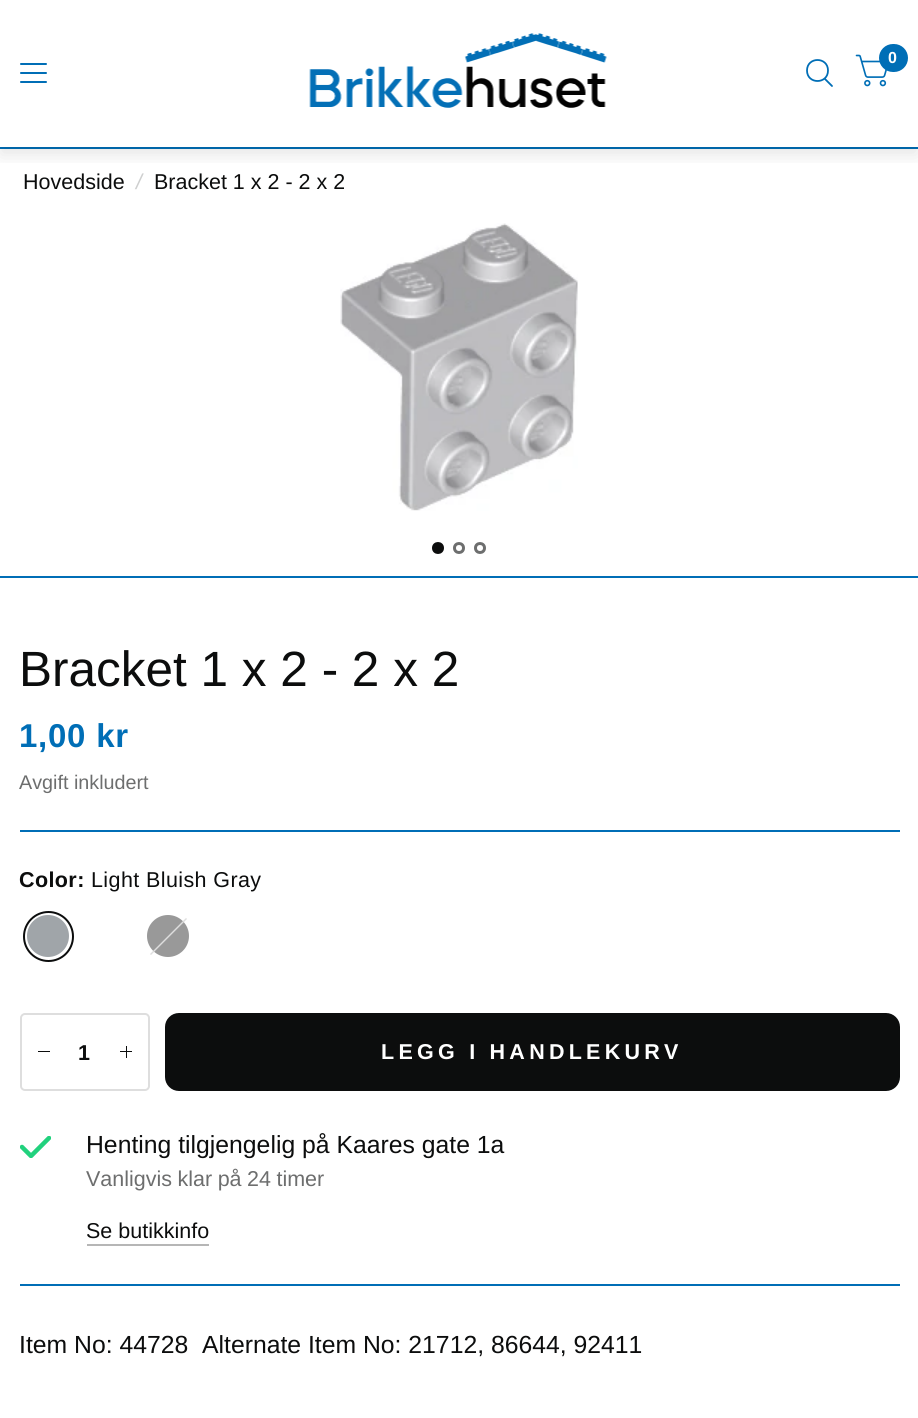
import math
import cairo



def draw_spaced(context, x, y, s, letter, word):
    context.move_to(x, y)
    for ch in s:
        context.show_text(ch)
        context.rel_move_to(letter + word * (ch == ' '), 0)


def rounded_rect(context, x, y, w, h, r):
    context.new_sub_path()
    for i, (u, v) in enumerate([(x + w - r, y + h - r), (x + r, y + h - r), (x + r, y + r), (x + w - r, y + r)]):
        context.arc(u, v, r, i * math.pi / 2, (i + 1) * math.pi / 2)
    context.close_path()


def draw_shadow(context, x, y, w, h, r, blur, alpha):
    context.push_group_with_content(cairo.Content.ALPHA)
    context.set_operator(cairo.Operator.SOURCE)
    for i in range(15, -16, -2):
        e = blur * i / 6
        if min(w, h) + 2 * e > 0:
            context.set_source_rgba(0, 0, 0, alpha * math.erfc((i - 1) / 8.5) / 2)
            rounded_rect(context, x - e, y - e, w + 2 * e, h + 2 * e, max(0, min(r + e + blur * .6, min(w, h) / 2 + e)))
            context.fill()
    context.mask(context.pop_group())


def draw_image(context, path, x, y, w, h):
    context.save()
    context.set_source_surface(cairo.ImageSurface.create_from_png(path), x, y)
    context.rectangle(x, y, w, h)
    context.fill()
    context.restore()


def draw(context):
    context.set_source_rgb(1, 1, 1)
    context.paint()
    context.set_source_rgb(0, 110 / 255, 182 / 255)
    context.rectangle(0, 147, 918, 2)
    context.fill()
    context.save()
    context.rectangle(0, 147, 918, 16)
    context.clip()
    context.set_source_rgb(0, 0, 0)
    draw_shadow(context, 0, 8, 918, 147, 0, 9, 0.1)
    context.restore()
    draw_image(context, "images/1.png", 309, 33, 298, 75)
    draw_image(context, "images/2.png", 855, 54, 32, 33)
    rounded_rect(context, 879, 44, 29, 28, 14)
    context.fill()
    context.new_path()
    context.move_to(825, 79)
    context.line_to(832, 86)
    context.move_to(828, 70.5)
    context.curve_to(828, 84.5, 807, 84.5, 807, 70.5)
    context.curve_to(807, 56.5, 828, 56.5, 828, 70.5)
    context.close_path()
    context.set_line_width(1.8)
    context.set_line_cap(cairo.LineCap.ROUND)
    context.set_line_join(cairo.LineJoin.ROUND)
    context.stroke()
    rounded_rect(context, 20, 63, 27, 2, 1)
    context.fill()
    rounded_rect(context, 20, 72, 27, 2, 1)
    context.fill()
    rounded_rect(context, 20, 81, 27, 2, 1)
    context.fill()
    draw_image(context, "images/3.png", 340, 223, 238, 288)
    context.rectangle(0, 576, 918, 2)
    context.fill()
    context.set_source_rgb(12 / 255, 13 / 255, 13 / 255)
    context.arc(438, 548, 4.5, 0, 2 * math.pi)
    context.fill_preserve()
    context.set_line_width(3)
    context.set_line_cap(cairo.LineCap.BUTT)
    context.set_line_join(cairo.LineJoin.MITER)
    context.stroke()
    context.arc(459, 548, 4.5, 0, 2 * math.pi)
    context.set_source_rgb(109 / 255, 110 / 255, 110 / 255)
    context.stroke()
    context.arc(480, 548, 4.5, 0, 2 * math.pi)
    context.stroke()
    context.set_source_rgb(0, 110 / 255, 182 / 255)
    context.rectangle(20, 830, 880, 2)
    context.fill()
    context.arc(48.5, 936.5, 24.5, 0, 2 * math.pi)
    context.set_source_rgb(12 / 255, 13 / 255, 13 / 255)
    context.set_line_width(2)
    context.stroke()
    context.set_source_rgb(160 / 255, 165 / 255, 169 / 255)
    context.arc(48, 936, 21, 0, 2 * math.pi)
    context.fill()
    context.set_source_rgb(153 / 255, 153 / 255, 153 / 255)
    context.arc(168, 936, 21, 0, 2 * math.pi)
    context.fill()
    gradient = cairo.LinearGradient(143, 911, 194, 962)
    gradient.add_color_stop_rgba(0.48, 222 / 255, 222 / 255, 222 / 255, 0)
    gradient.add_color_stop_rgba(0.5, 222 / 255, 222 / 255, 222 / 255, 1)
    gradient.add_color_stop_rgba(0.52, 222 / 255, 222 / 255, 222 / 255, 0)
    context.set_source(gradient)
    context.arc(168.5, 936.5, 25.5, 0, 2 * math.pi)
    context.fill()
    rounded_rect(context, 21, 1014, 128, 76, 4)
    context.set_source_rgb(222 / 255, 222 / 255, 222 / 255)
    context.stroke()
    context.set_source_rgb(12 / 255, 13 / 255, 13 / 255)
    context.rectangle(38, 1051, 12, 1)
    context.fill()
    context.rectangle(126, 1046, 1, 12)
    context.fill()
    context.rectangle(120, 1051, 12, 1)
    context.fill()
    rounded_rect(context, 165, 1013, 735, 78, 14)
    context.fill()
    context.set_source_rgb(0, 110 / 255, 182 / 255)
    context.rectangle(20, 1284, 880, 2)
    context.fill()
    context.save()
    context.rectangle(20, 1136, 31, 22)
    context.clip()
    context.new_path()
    context.move_to(49, 1138)
    context.line_to(31, 1156)
    context.line_to(22, 1147)
    context.set_source_rgb(33 / 255, 209 / 255, 125 / 255)
    context.set_line_width(4.5)
    context.set_line_cap(cairo.LineCap.ROUND)
    context.set_line_join(cairo.LineJoin.ROUND)
    context.stroke()
    context.restore()
    context.set_source_rgb(182 / 255, 182 / 255, 182 / 255)
    context.rectangle(87, 1244, 122, 2)
    context.fill()
    context.select_font_face("Liberation Sans", cairo.FontSlant.NORMAL, cairo.FontWeight.BOLD)
    context.set_font_size(16)
    context.set_source_rgb(1, 1, 1)
    context.move_to(888, 63)
    context.show_text("0")
    context.select_font_face("Liberation Sans")
    context.set_font_size(21.5)
    context.set_source_rgb(12 / 255, 13 / 255, 13 / 255)
    context.move_to(23, 189)
    context.show_text("Hovedside")
    context.select_font_face("Liberation Sans", cairo.FontSlant.ITALIC)
    context.set_source_rgb(206 / 255, 207 / 255, 207 / 255)
    context.move_to(136, 189)
    context.show_text("/")
    context.select_font_face("Liberation Sans")
    context.set_source_rgb(12 / 255, 13 / 255, 13 / 255)
    context.move_to(154, 189)
    context.show_text("Bracket 1 x 2 - 2 x 2")
    context.set_font_size(49.5)
    context.move_to(19, 686)
    context.show_text("Bracket 1 x 2 - 2 x 2")
    context.select_font_face("Liberation Sans", cairo.FontSlant.NORMAL, cairo.FontWeight.BOLD)
    context.set_font_size(33)
    context.set_source_rgb(0, 110 / 255, 182 / 255)
    draw_spaced(context, 19, 747, "1,00 kr", 0.75, 0)
    context.select_font_face("Liberation Sans")
    context.set_font_size(19.75)
    context.set_source_rgb(109 / 255, 110 / 255, 110 / 255)
    context.move_to(19, 789)
    context.show_text("Avgift inkludert")
    context.select_font_face("Liberation Sans", cairo.FontSlant.NORMAL, cairo.FontWeight.BOLD)
    context.set_font_size(21.5)
    context.set_source_rgb(12 / 255, 13 / 255, 13 / 255)
    draw_spaced(context, 19, 887, "Color:", 0.4, 0)
    context.select_font_face("Liberation Sans")
    draw_spaced(context, 91, 887, "Light Bluish Gray", 0.4, 0)
    context.select_font_face("Liberation Sans", cairo.FontSlant.NORMAL, cairo.FontWeight.BOLD)
    context.move_to(78, 1060)
    context.show_text("1")
    context.set_source_rgb(1, 1, 1)
    draw_spaced(context, 381, 1059, "LEGG I HANDLEKURV", 4.25, 0)
    context.select_font_face("Liberation Sans")
    context.set_font_size(24.75)
    context.set_source_rgb(12 / 255, 13 / 255, 13 / 255)
    context.move_to(86, 1153)
    context.show_text("Henting tilgjengelig på Kaares gate 1a")
    context.set_font_size(21.5)
    context.set_source_rgb(109 / 255, 110 / 255, 110 / 255)
    draw_spaced(context, 86, 1186, "Vanligvis klar på 24 timer", 0, -0.5)
    context.set_source_rgb(12 / 255, 13 / 255, 13 / 255)
    context.move_to(86, 1238)
    context.show_text("Se butikkinfo")
    context.set_font_size(24.75)
    context.move_to(19, 1353)
    context.show_text("Item No: 44728")
    context.move_to(202, 1353)
    context.show_text("Alternate Item No: 21712, 86644, 92411")


surface = cairo.ImageSurface(cairo.Format.RGB24, 918, 1418)
context = cairo.Context(surface)
options = cairo.FontOptions()
options.set_hint_metrics(cairo.HintMetrics.OFF)
options.set_hint_style(cairo.HintStyle.NONE)
context.set_font_options(options)
context.set_miter_limit(4)
draw(context)
surface.write_to_png("out.png")
